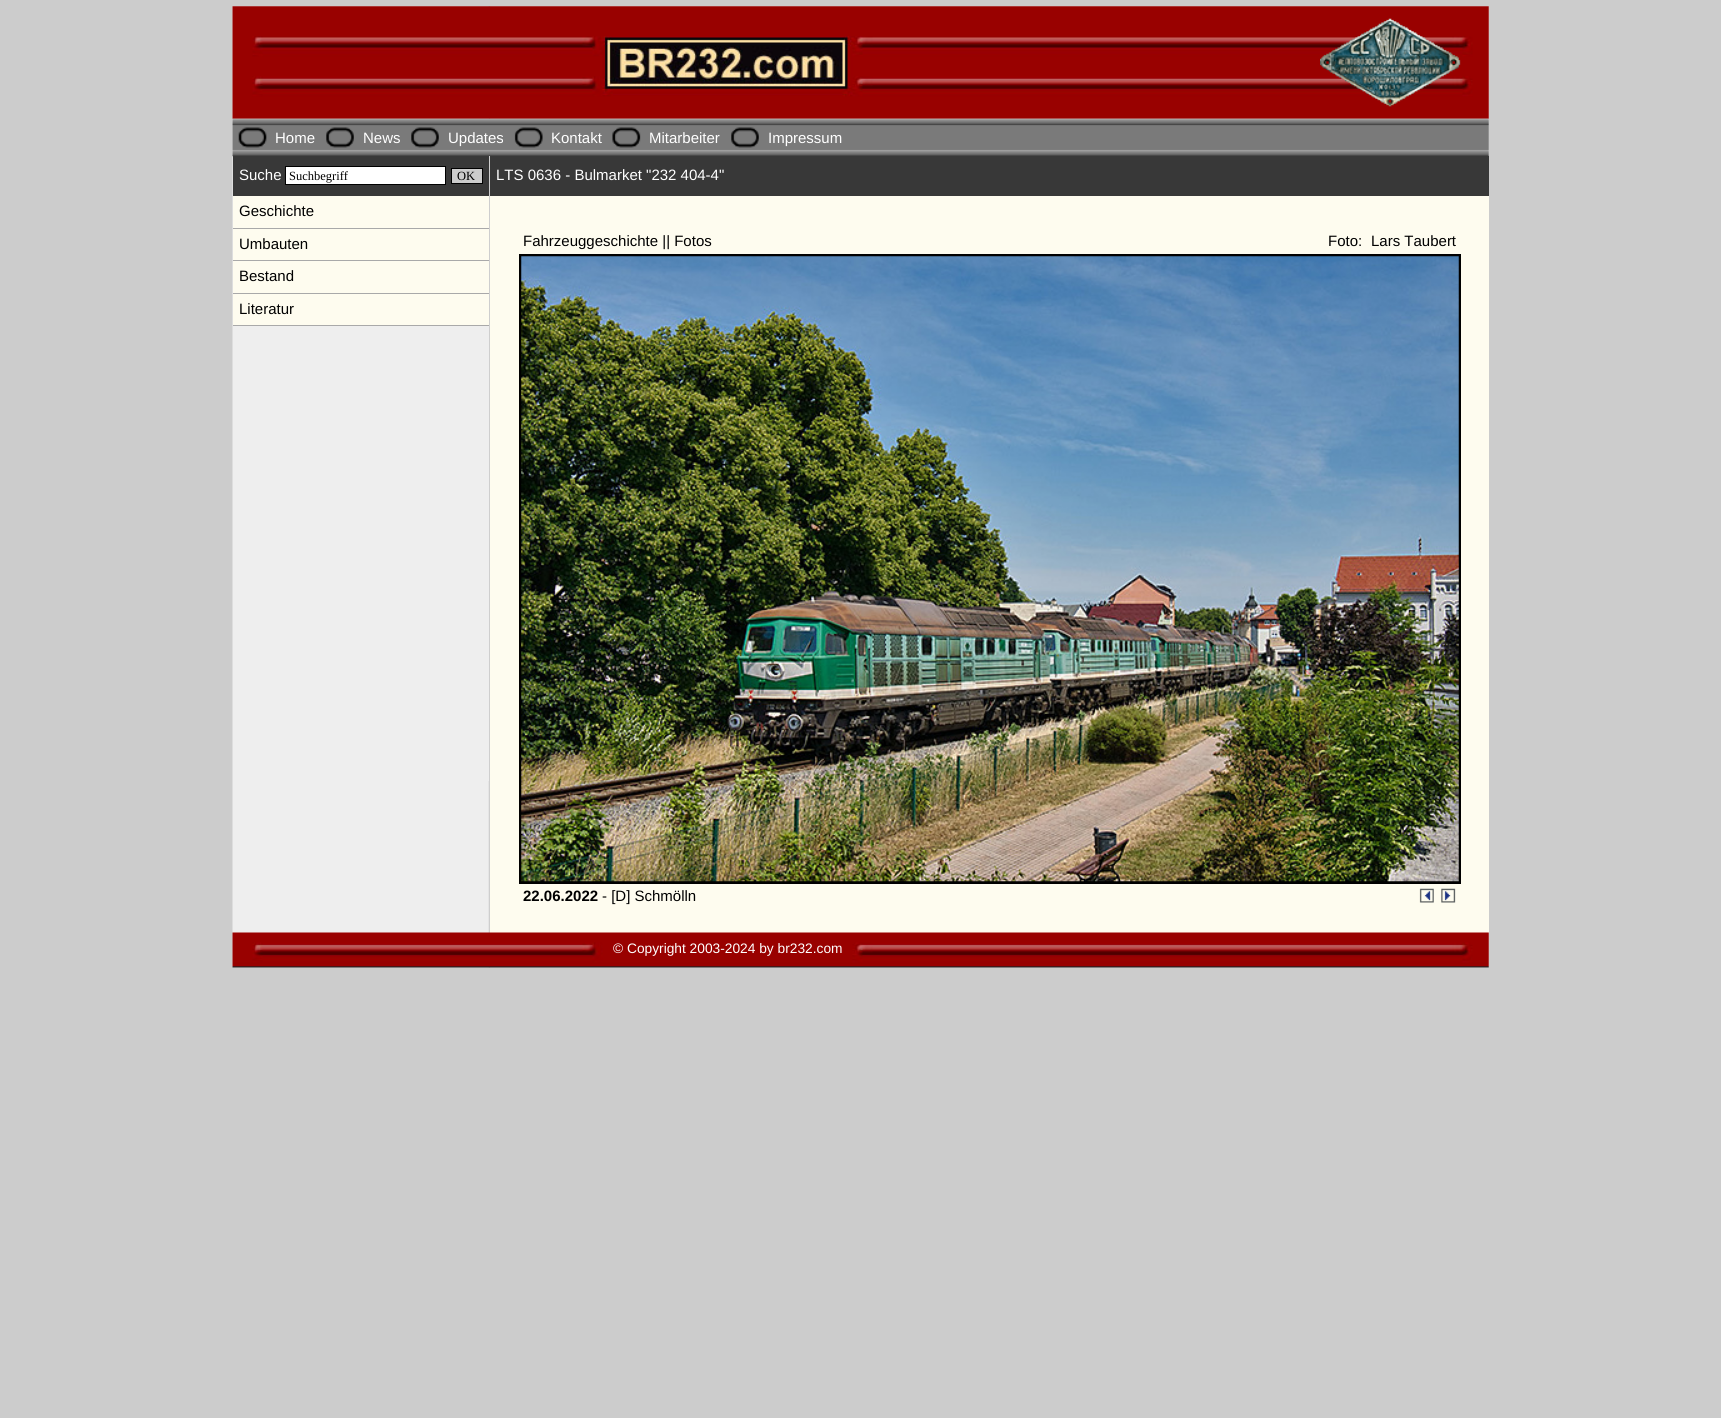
import math
import cairo



def draw_image(context, path, x, y, w, h):
    context.save()
    context.set_source_surface(cairo.ImageSurface.create_from_png(path), x, y)
    context.rectangle(x, y, w, h)
    context.fill()
    context.restore()


def draw(context):
    context.set_source_rgb(204 / 255, 204 / 255, 204 / 255)
    context.paint()
    draw_image(context, "images/1.png", 232, 6, 1257, 962)
    draw_image(context, "images/2.png", 232, 6, 1257, 113)
    draw_image(context, "images/3.png", 1320, 18, 141, 89)
    draw_image(context, "images/4.png", 232, 118, 1257, 39)
    draw_image(context, "images/5.png", 238, 127, 29, 21)
    draw_image(context, "images/6.png", 326, 127, 28, 21)
    draw_image(context, "images/7.png", 411, 127, 28, 21)
    draw_image(context, "images/8.png", 514, 127, 29, 21)
    draw_image(context, "images/9.png", 612, 127, 29, 21)
    draw_image(context, "images/7.png", 731, 127, 28, 21)
    context.set_source_rgb(238 / 255, 238 / 255, 238 / 255)
    context.rectangle(488, 326, 1, 455)
    context.fill()
    context.set_source_rgb(56 / 255, 56 / 255, 56 / 255)
    context.rectangle(233, 156, 256, 40)
    context.fill()
    context.set_source_rgb(1, 1, 1)
    context.rectangle(285.5, 166.5, 160, 18)
    context.fill_preserve()
    context.set_source_rgb(0, 0, 0)
    context.set_line_width(1)
    context.stroke()
    context.set_source_rgb(204 / 255, 204 / 255, 204 / 255)
    context.rectangle(451.5, 168.5, 31, 15)
    context.fill_preserve()
    context.set_source_rgb(0, 0, 0)
    context.stroke()
    context.set_source_rgb(254 / 255, 252 / 255, 239 / 255)
    context.rectangle(233, 196, 256, 32)
    context.fill()
    context.set_source_rgb(169 / 255, 169 / 255, 169 / 255)
    context.rectangle(233, 228, 256, 1)
    context.fill()
    context.set_source_rgb(254 / 255, 252 / 255, 239 / 255)
    context.rectangle(233, 229, 256, 31)
    context.fill()
    context.set_source_rgb(169 / 255, 169 / 255, 169 / 255)
    context.rectangle(233, 260, 256, 1)
    context.fill()
    context.set_source_rgb(254 / 255, 252 / 255, 239 / 255)
    context.rectangle(233, 261, 256, 32)
    context.fill()
    context.set_source_rgb(169 / 255, 169 / 255, 169 / 255)
    context.rectangle(233, 293, 256, 1)
    context.fill()
    context.set_source_rgb(254 / 255, 252 / 255, 239 / 255)
    context.rectangle(233, 294, 256, 31)
    context.fill()
    context.set_source_rgb(169 / 255, 169 / 255, 169 / 255)
    context.rectangle(233, 325, 256, 1)
    context.fill()
    context.set_source_rgb(254 / 255, 252 / 255, 239 / 255)
    context.rectangle(490, 196, 999, 737)
    context.fill()
    context.set_source_rgb(204 / 255, 204 / 255, 204 / 255)
    context.rectangle(489, 156, 1, 1)
    context.fill()
    context.set_source_rgb(56 / 255, 56 / 255, 56 / 255)
    context.rectangle(490, 156, 999, 40)
    context.fill()
    context.rectangle(520.5, 255.5, 939, 627)
    context.set_source_rgb(0, 0, 0)
    context.set_line_width(3)
    context.stroke()
    draw_image(context, "images/10.png", 521, 256, 938, 626)
    draw_image(context, "images/11.png", 1419, 888, 15, 15)
    draw_image(context, "images/12.png", 1441, 888, 15, 15)
    draw_image(context, "images/13.png", 232, 932, 1257, 36)
    context.select_font_face("Liberation Sans")
    context.set_font_size(15)
    context.set_source_rgb(1, 1, 1)
    context.move_to(275, 143)
    context.show_text("Home")
    context.move_to(363, 143)
    context.show_text("News")
    context.move_to(448, 143)
    context.show_text("Updates")
    context.move_to(551, 143)
    context.show_text("Kontakt")
    context.move_to(649, 143)
    context.show_text("Mitarbeiter")
    context.move_to(768, 143)
    context.show_text("Impressum")
    context.move_to(239, 180)
    context.show_text("Suche")
    context.select_font_face("Liberation Serif")
    context.set_font_size(12.5)
    context.set_source_rgb(0, 0, 0)
    context.move_to(289, 180)
    context.show_text("Suchbegriff")
    context.move_to(457, 180)
    context.show_text("OK")
    context.select_font_face("Liberation Sans")
    context.set_font_size(15)
    context.move_to(239, 216)
    context.show_text("Geschichte")
    context.move_to(239, 249)
    context.show_text("Umbauten")
    context.move_to(239, 281)
    context.show_text("Bestand")
    context.move_to(239, 314)
    context.show_text("Literatur")
    context.set_source_rgb(1, 1, 1)
    context.move_to(496, 180)
    context.show_text("LTS 0636 - Bulmarket \"232 404-4\"")
    context.set_source_rgb(0, 0, 0)
    context.move_to(523, 246)
    context.show_text("Fahrzeuggeschichte || Fotos")
    context.move_to(1328, 246)
    context.show_text("Foto:")
    context.move_to(1371, 246)
    context.show_text("Lars Taubert")
    context.select_font_face("Liberation Sans", cairo.FontSlant.NORMAL, cairo.FontWeight.BOLD)
    context.move_to(523, 901)
    context.show_text("22.06.2022")
    context.select_font_face("Liberation Sans")
    context.move_to(602, 901)
    context.show_text("- [D] Schmölln")
    context.set_font_size(13.75)
    context.set_source_rgb(1, 1, 1)
    context.move_to(613, 953)
    context.show_text("© Copyright 2003-2024 by br232.com")


surface = cairo.ImageSurface(cairo.Format.RGB24, 1721, 1418)
context = cairo.Context(surface)
options = cairo.FontOptions()
options.set_hint_metrics(cairo.HintMetrics.OFF)
options.set_hint_style(cairo.HintStyle.NONE)
context.set_font_options(options)
context.set_miter_limit(4)
draw(context)
surface.write_to_png("out.png")
